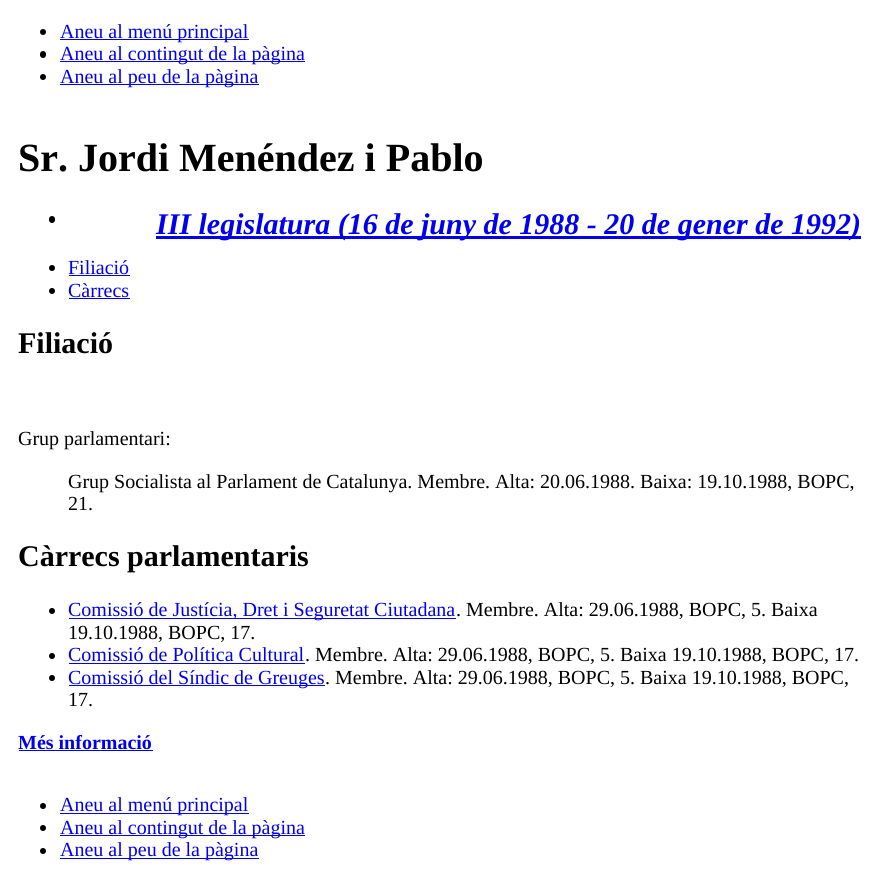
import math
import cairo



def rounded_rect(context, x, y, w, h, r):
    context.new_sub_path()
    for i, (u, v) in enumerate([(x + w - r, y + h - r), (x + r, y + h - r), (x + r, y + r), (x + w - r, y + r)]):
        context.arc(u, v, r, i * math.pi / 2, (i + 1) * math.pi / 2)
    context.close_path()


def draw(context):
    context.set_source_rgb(1, 1, 1)
    context.paint()
    context.set_source_rgb(0, 0, 0)
    context.arc(43, 32, 3, 0, 2 * math.pi)
    context.fill()
    context.set_source_rgb(0, 0, 238 / 255)
    context.rectangle(60, 39, 189, 1)
    context.fill()
    context.set_source_rgb(0, 0, 0)
    rounded_rect(context, 40, 51, 6, 7, 3)
    context.fill()
    context.set_source_rgb(0, 0, 238 / 255)
    context.rectangle(60, 61, 245, 1)
    context.fill()
    context.set_source_rgb(0, 0, 0)
    context.arc(43, 77, 3, 0, 2 * math.pi)
    context.fill()
    context.set_source_rgb(0, 0, 238 / 255)
    context.rectangle(60, 84, 199, 1)
    context.fill()
    context.set_source_rgb(0, 0, 0)
    rounded_rect(context, 49, 216, 6, 7, 3)
    context.fill()
    context.set_source_rgb(0, 0, 238 / 255)
    context.rectangle(156, 236, 705, 3)
    context.fill()
    context.set_source_rgb(0, 0, 0)
    context.arc(52, 268, 3, 0, 2 * math.pi)
    context.fill()
    context.set_source_rgb(0, 0, 238 / 255)
    context.rectangle(69, 275, 61, 1)
    context.fill()
    context.set_source_rgb(0, 0, 0)
    context.arc(52, 291, 3, 0, 2 * math.pi)
    context.fill()
    context.set_source_rgb(0, 0, 238 / 255)
    context.rectangle(69, 298, 61, 1)
    context.fill()
    context.set_source_rgb(0, 0, 0)
    context.arc(52, 611, 3, 0, 2 * math.pi)
    context.fill()
    context.set_source_rgb(0, 0, 238 / 255)
    context.rectangle(69, 618, 387, 1)
    context.fill()
    context.set_source_rgb(0, 0, 0)
    context.arc(52, 656, 3, 0, 2 * math.pi)
    context.fill()
    context.set_source_rgb(0, 0, 238 / 255)
    context.rectangle(69, 663, 236, 1)
    context.fill()
    context.set_source_rgb(0, 0, 0)
    context.arc(52, 678, 3, 0, 2 * math.pi)
    context.fill()
    context.set_source_rgb(0, 0, 238 / 255)
    context.rectangle(69, 685, 256, 1)
    context.fill()
    context.rectangle(19, 750, 134, 1)
    context.fill()
    context.set_source_rgb(0, 0, 0)
    context.arc(43, 806, 3, 0, 2 * math.pi)
    context.fill()
    context.set_source_rgb(0, 0, 238 / 255)
    context.rectangle(60, 813, 189, 1)
    context.fill()
    context.set_source_rgb(0, 0, 0)
    context.arc(43, 828, 3, 0, 2 * math.pi)
    context.fill()
    context.set_source_rgb(0, 0, 238 / 255)
    context.rectangle(60, 835, 245, 1)
    context.fill()
    context.set_source_rgb(0, 0, 0)
    context.arc(43, 851, 3, 0, 2 * math.pi)
    context.fill()
    context.set_source_rgb(0, 0, 238 / 255)
    context.rectangle(60, 858, 199, 1)
    context.fill()
    context.select_font_face("Liberation Serif")
    context.set_font_size(20)
    context.move_to(60, 38)
    context.show_text("Aneu al menú principal")
    context.move_to(60, 60)
    context.show_text("Aneu al contingut de la pàgina")
    context.move_to(60, 83)
    context.show_text("Aneu al peu de la pàgina")
    context.select_font_face("Liberation Serif", cairo.FontSlant.NORMAL, cairo.FontWeight.BOLD)
    context.set_font_size(40)
    context.set_source_rgb(0, 0, 0)
    context.move_to(18, 171)
    context.show_text("Sr. Jordi Menéndez i Pablo")
    context.select_font_face("Liberation Serif", cairo.FontSlant.ITALIC, cairo.FontWeight.BOLD)
    context.set_font_size(30)
    context.set_source_rgb(0, 0, 238 / 255)
    context.move_to(156, 234)
    context.show_text("III legislatura (16 de juny de 1988 - 20 de gener de 1992)")
    context.select_font_face("Liberation Serif")
    context.set_font_size(20)
    context.move_to(68, 274)
    context.show_text("Filiació")
    context.move_to(68, 297)
    context.show_text("Càrrecs")
    context.select_font_face("Liberation Serif", cairo.FontSlant.NORMAL, cairo.FontWeight.BOLD)
    context.set_font_size(30)
    context.set_source_rgb(0, 0, 0)
    context.move_to(18, 353)
    context.show_text("Filiació")
    context.select_font_face("Liberation Serif")
    context.set_font_size(20)
    context.move_to(18, 445)
    context.show_text("Grup parlamentari:")
    context.move_to(68, 488)
    context.show_text("Grup Socialista al Parlament de Catalunya. Membre. Alta: 20.06.1988. Baixa: 19.10.1988, BOPC,")
    context.move_to(68, 510)
    context.show_text("21.")
    context.select_font_face("Liberation Serif", cairo.FontSlant.NORMAL, cairo.FontWeight.BOLD)
    context.set_font_size(30)
    context.move_to(18, 566)
    context.show_text("Càrrecs parlamentaris")
    context.select_font_face("Liberation Serif")
    context.set_font_size(20)
    context.set_source_rgb(0, 0, 238 / 255)
    context.move_to(68, 616)
    context.show_text("Comissió de Justícia, Dret i Seguretat Ciutadana")
    context.set_source_rgb(0, 0, 0)
    context.move_to(456, 616)
    context.show_text(". Membre. Alta: 29.06.1988, BOPC, 5. Baixa")
    context.move_to(68, 639)
    context.show_text("19.10.1988, BOPC, 17.")
    context.set_source_rgb(0, 0, 238 / 255)
    context.move_to(68, 661)
    context.show_text("Comissió de Política Cultural")
    context.set_source_rgb(0, 0, 0)
    context.move_to(305, 661)
    context.show_text(". Membre. Alta: 29.06.1988, BOPC, 5. Baixa 19.10.1988, BOPC, 17.")
    context.set_source_rgb(0, 0, 238 / 255)
    context.move_to(68, 684)
    context.show_text("Comissió del Síndic de Greuges")
    context.set_source_rgb(0, 0, 0)
    context.move_to(325, 684)
    context.show_text(". Membre. Alta: 29.06.1988, BOPC, 5. Baixa 19.10.1988, BOPC,")
    context.move_to(68, 706)
    context.show_text("17.")
    context.select_font_face("Liberation Serif", cairo.FontSlant.NORMAL, cairo.FontWeight.BOLD)
    context.set_source_rgb(0, 0, 238 / 255)
    context.move_to(18, 749)
    context.show_text("Més informació")
    context.select_font_face("Liberation Serif")
    context.move_to(60, 811)
    context.show_text("Aneu al menú principal")
    context.move_to(60, 834)
    context.show_text("Aneu al contingut de la pàgina")
    context.move_to(60, 856)
    context.show_text("Aneu al peu de la pàgina")


surface = cairo.ImageSurface(cairo.Format.RGB24, 871, 892)
context = cairo.Context(surface)
options = cairo.FontOptions()
options.set_hint_metrics(cairo.HintMetrics.OFF)
options.set_hint_style(cairo.HintStyle.NONE)
context.set_font_options(options)
context.set_miter_limit(4)
draw(context)
surface.write_to_png("out.png")
